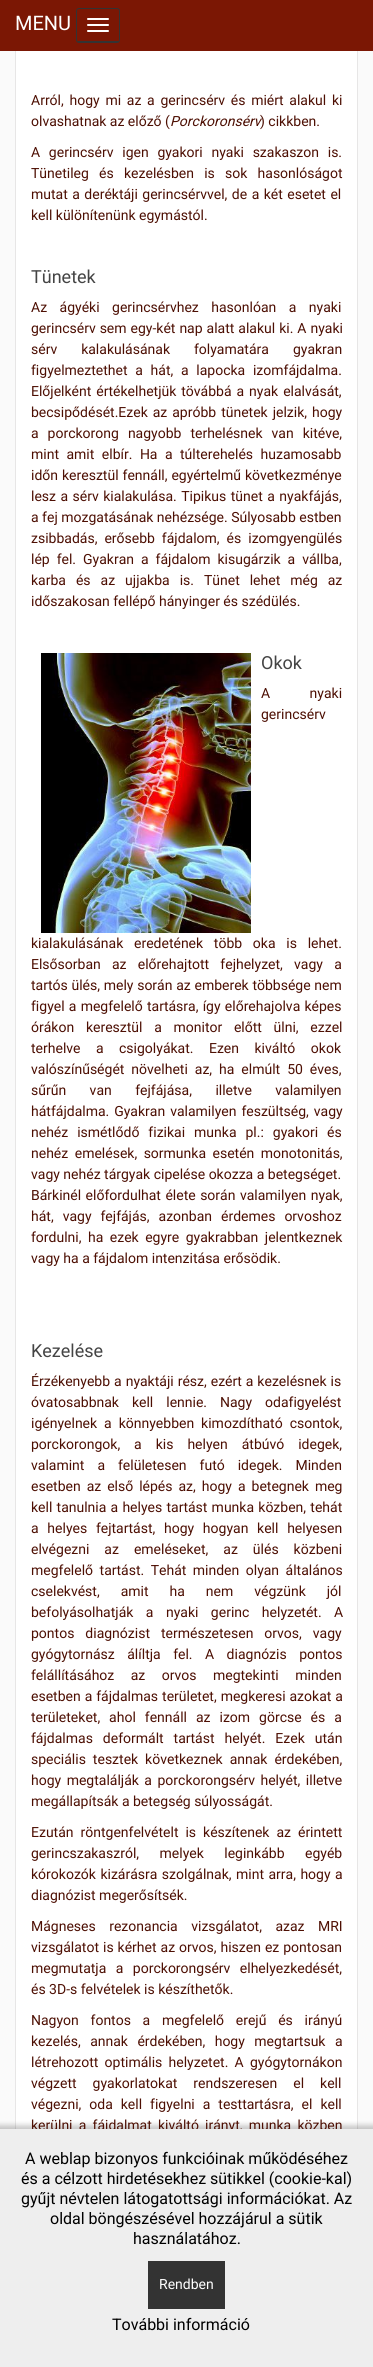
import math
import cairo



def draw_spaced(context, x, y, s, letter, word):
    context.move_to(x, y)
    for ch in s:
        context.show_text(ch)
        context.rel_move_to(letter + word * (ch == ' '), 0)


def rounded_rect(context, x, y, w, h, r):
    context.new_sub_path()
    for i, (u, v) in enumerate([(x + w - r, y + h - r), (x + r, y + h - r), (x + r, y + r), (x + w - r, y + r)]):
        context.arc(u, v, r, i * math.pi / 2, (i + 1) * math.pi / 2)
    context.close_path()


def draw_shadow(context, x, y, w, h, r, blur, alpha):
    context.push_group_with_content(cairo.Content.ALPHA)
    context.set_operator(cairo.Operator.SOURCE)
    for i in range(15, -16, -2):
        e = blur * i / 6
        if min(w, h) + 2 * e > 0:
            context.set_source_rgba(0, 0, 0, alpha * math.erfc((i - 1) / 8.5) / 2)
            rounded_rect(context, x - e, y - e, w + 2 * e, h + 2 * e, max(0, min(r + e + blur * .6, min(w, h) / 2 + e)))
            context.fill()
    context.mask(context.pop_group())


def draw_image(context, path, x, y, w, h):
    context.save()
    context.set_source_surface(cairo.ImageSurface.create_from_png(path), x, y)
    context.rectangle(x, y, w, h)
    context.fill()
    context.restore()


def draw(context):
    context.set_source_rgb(250 / 255, 250 / 255, 250 / 255)
    context.paint()
    context.new_path()
    context.move_to(357, -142)
    context.line_to(357.5, -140)
    context.line_to(357.5, 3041)
    context.line_to(357, 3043)
    context.set_source_rgb(231 / 255, 230 / 255, 230 / 255)
    context.set_line_width(1)
    context.stroke()
    context.new_path()
    context.move_to(16, 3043)
    context.line_to(15.5, 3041)
    context.line_to(15.5, -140)
    context.line_to(16, -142)
    context.stroke()
    context.set_source_rgb(123 / 255, 23 / 255, 4 / 255)
    context.rectangle(0, 0, 373, 51)
    context.fill()
    rounded_rect(context, 76.5, 8.5, 43, 34, 2.5)
    context.set_source_rgb(51 / 255, 51 / 255, 51 / 255)
    context.stroke()
    context.rectangle(78, 41, 41, 1)
    context.fill()
    context.set_source_rgb(1, 1, 1)
    rounded_rect(context, 87, 18, 22, 2, 1)
    context.fill()
    rounded_rect(context, 87, 24, 22, 2, 1)
    context.fill()
    rounded_rect(context, 87, 30, 22, 2, 1)
    context.fill()
    context.rectangle(16, 51, 341, 2078)
    context.fill()
    draw_image(context, "images/1.png", 41, 653, 210, 280)
    context.set_source_rgb(0, 0, 0)
    draw_shadow(context, -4, 2125, 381, 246, 0, 2.5, 0.21)
    context.select_font_face("Roboto")
    context.set_font_size(20)
    context.set_source_rgb(1, 1, 1)
    context.move_to(15, 30)
    context.show_text("MENU")
    context.set_font_size(14)
    context.set_source_rgb(77 / 255, 15 / 255, 3 / 255)
    draw_spaced(context, 31, 105, "Arról, hogy mi az a gerincsérv és miért alakul ki", 0, 2.25)
    context.move_to(31, 126)
    context.show_text("olvashatnak az előző (")
    context.select_font_face("Roboto", cairo.FontSlant.ITALIC)
    context.move_to(170, 126)
    context.show_text("Porckoronsérv")
    context.select_font_face("Roboto")
    context.move_to(260, 126)
    context.show_text(") cikkben.")
    draw_spaced(context, 31, 157, "A gerincsérv igen gyakori nyaki szakaszon is.", 0, 5.25)
    draw_spaced(context, 31, 178, "Tünetileg és kezelésben is sok hasonlóságot", 0, 6.75)
    draw_spaced(context, 31, 199, "mutat a deréktáji gerincsérvvel, de a két esetet el", 0, 1)
    context.move_to(31, 220)
    context.show_text("kell különítenünk egymástól.")
    context.set_font_size(18)
    context.set_source_rgb(68 / 255, 68 / 255, 68 / 255)
    context.move_to(31, 283)
    context.show_text("Tünetek")
    context.set_font_size(14)
    context.set_source_rgb(77 / 255, 15 / 255, 3 / 255)
    draw_spaced(context, 31, 312, "Az ágyéki gerincsérvhez hasonlóan a nyaki", 0, 9)
    draw_spaced(context, 31, 333, "gerincsérv sem egy-két nap alatt alakul ki. A nyaki", 0, 0.5)
    draw_spaced(context, 31, 354, "sérv kalakulásának folyamatára gyakran", 0, 20.5)
    draw_spaced(context, 31, 375, "figyelmeztethet a hát, a lapocka izomfájdalma.", 0, 4.25)
    draw_spaced(context, 31, 396, "Előjelként értékelhetjük tövábbá a nyak elalvását,", 0, 1.5)
    draw_spaced(context, 31, 417, "becsipődését.Ezek az apróbb tünetek jelzik, hogy", 0, 1.5)
    draw_spaced(context, 31, 438, "a porckorong nagyobb terhelésnek van kitéve,", 0, 5.5)
    draw_spaced(context, 31, 459, "mint amit elbír. Ha a túlterehelés huzamosabb", 0, 4)
    draw_spaced(context, 31, 480, "időn keresztül fennáll, egyértelmű következménye", 0, 0.5)
    draw_spaced(context, 31, 501, "lesz a sérv kialakulása. Tipikus tünet a nyakfájás,", 0, 1)
    context.move_to(31, 522)
    context.show_text("a fej mozgatásának nehézsége. Súlyosabb estben")
    draw_spaced(context, 31, 543, "zsibbadás, erősebb fájdalom, és izomgyengülés", 0, 3.5)
    draw_spaced(context, 31, 564, "lép fel. Gyakran a fájdalom kisugárzik a vállba,", 0, 3.5)
    draw_spaced(context, 31, 585, "karba és az ujjakba is. Tünet lehet még az", 0, 6.5)
    context.move_to(31, 606)
    context.show_text("időszakosan fellépő hányinger és szédülés.")
    context.set_font_size(18)
    context.set_source_rgb(68 / 255, 68 / 255, 68 / 255)
    context.move_to(261, 669)
    context.show_text("Okok")
    context.set_font_size(14)
    context.set_source_rgb(77 / 255, 15 / 255, 3 / 255)
    draw_spaced(context, 261, 698, "A nyaki", 0, 36)
    context.move_to(261, 719)
    context.show_text("gerincsérv")
    draw_spaced(context, 31, 948, "kialakulásának eredetének több oka is lehet.", 0, 7.25)
    draw_spaced(context, 31, 969, "Elsősorban az előrehajtott fejhelyzet, vagy a", 0, 7.75)
    draw_spaced(context, 31, 990, "tartós ülés, mely során az emberek többsége nem", 0, 0.25)
    draw_spaced(context, 31, 1011, "figyel a megfelelő tartásra, így előrehajolva képes", 0, 0.75)
    draw_spaced(context, 31, 1032, "órákon keresztül a monitor előtt ülni, ezzel", 0, 8.25)
    draw_spaced(context, 31, 1053, "terhelve a csigolyákat. Ezen kiváltó okok", 0, 12)
    draw_spaced(context, 31, 1074, "valószínűségét növelheti az, ha elmúlt 50 éves,", 0, 3.5)
    draw_spaced(context, 31, 1095, "sűrűn van fejfájása, illetve valamilyen", 0, 20)
    draw_spaced(context, 31, 1116, "hátfájdalma. Gyakran valamilyen feszültség, vagy", 0, 1.5)
    draw_spaced(context, 31, 1137, "nehéz ismétlődő fizikai munka pl.: gyakori és", 0, 5.5)
    draw_spaced(context, 31, 1158, "nehéz emelések, sormunka esetén monotonitás,", 0, 3)
    context.move_to(31, 1179)
    context.show_text("vagy nehéz tárgyak cipelése okozza a betegséget.")
    draw_spaced(context, 31, 1200, "Bárkinél előfordulhat élete során valamilyen nyak,", 0, 1)
    draw_spaced(context, 31, 1221, "hát, vagy fejfájás, azonban érdemes orvoshoz", 0, 5.5)
    draw_spaced(context, 31, 1242, "fordulni, ha ezek egyre gyakrabban jelentkeznek", 0, 3)
    context.move_to(31, 1263)
    context.show_text("vagy ha a fájdalom intenzitása erősödik.")
    context.set_font_size(18)
    context.set_source_rgb(68 / 255, 68 / 255, 68 / 255)
    context.move_to(31, 1357)
    context.show_text("Kezelése")
    context.set_font_size(14)
    context.set_source_rgb(77 / 255, 15 / 255, 3 / 255)
    draw_spaced(context, 31, 1386, "Érzékenyebb a nyaktáji rész, ezért a kezelésnek is", 0, 0.5)
    draw_spaced(context, 31, 1407, "óvatosabbnak kell lennie. Nagy odafigyelést", 0, 9.5)
    draw_spaced(context, 31, 1428, "igényelnek a könnyebben kimozdítható csontok,", 0, 3.5)
    draw_spaced(context, 31, 1449, "porckorongok, a kis helyen átbúvó idegek,", 0, 10.5)
    draw_spaced(context, 31, 1470, "valamint a felületesen futó idegek. Minden", 0, 9.5)
    draw_spaced(context, 31, 1491, "esetben az első lépés az, hogy a betegnek meg", 0, 2.5)
    draw_spaced(context, 31, 1512, "kell tanulnia a helyes tartást munka közben, tehát", 0, 0.75)
    draw_spaced(context, 31, 1533, "a helyes fejtartást, hogy hogyan kell helyesen", 0, 5.25)
    draw_spaced(context, 31, 1554, "elvégezni az emeléseket, az ülés közbeni", 0, 11.5)
    draw_spaced(context, 31, 1575, "megfelelő tartást. Tehát minden olyan általános", 0, 3)
    draw_spaced(context, 31, 1596, "cselekvést, amit ha nem végzünk jól", 0, 17.5)
    draw_spaced(context, 31, 1617, "befolyásolhatják a nyaki gerinc helyzetét. A", 0, 9)
    draw_spaced(context, 31, 1638, "pontos diagnózist természetesen orvos, vagy", 0, 7.5)
    draw_spaced(context, 31, 1659, "gyógytornász álíltja fel. A diagnózis pontos", 0, 9)
    draw_spaced(context, 31, 1680, "felállításához az orvos megtekinti minden", 0, 13)
    draw_spaced(context, 31, 1701, "esetben a fájdalmas területet, megkeresi azokat a", 0, 0.5)
    draw_spaced(context, 31, 1722, "területeket, ahol fennáll az izom görcse és a", 0, 5.5)
    draw_spaced(context, 31, 1743, "fájdalmas deformált tartást helyét. Ezek után", 0, 6.5)
    draw_spaced(context, 31, 1764, "speciális tesztek következnek annak érdekében,", 0, 3.5)
    draw_spaced(context, 31, 1785, "hogy megtalálják a porckorongsérv helyét, illetve", 0, 2)
    context.move_to(31, 1806)
    context.show_text("megállapítsák a betegség súlyosságát.")
    draw_spaced(context, 31, 1837, "Ezután röntgenfelvételt is készítenek az érintett", 0, 3.5)
    draw_spaced(context, 31, 1858, "gerincszakaszról, melyek leginkább egyéb", 0, 17)
    draw_spaced(context, 31, 1879, "kórokozók kizárásra szolgálnak, mint arra, hogy a", 0, 1)
    context.move_to(31, 1900)
    context.show_text("diagnózist megerősítsék.")
    draw_spaced(context, 31, 1931, "Mágneses rezonancia vizsgálatot, azaz MRI", 0, 10)
    draw_spaced(context, 31, 1952, "vizsgálatot is kérhet az orvos, hiszen ez pontosan", 0, 0.5)
    draw_spaced(context, 31, 1973, "megmutatja a porckorongsérv elhelyezkedését,", 0, 6)
    context.move_to(31, 1994)
    context.show_text("és 3D-s felvételek is készíthetők.")
    draw_spaced(context, 31, 2025, "Nagyon fontos a megfelelő erejű és irányú", 0, 8.25)
    draw_spaced(context, 31, 2046, "kezelés, annak érdekében, hogy megtartsuk a", 0, 6)
    draw_spaced(context, 31, 2067, "létrehozott optimális helyzetet. A gyógytornákon", 0, 2.75)
    draw_spaced(context, 31, 2088, "végzett gyakorlatokat rendszeresen el kell", 0, 12.5)
    draw_spaced(context, 31, 2109, "végezni, oda kell figyelni a testtartásra, el kell", 0, 4.5)
    draw_spaced(context, 31, 2130, "kerülni a fájdalmat kiváltó irányt, munka közben", 0, 2.75)
    context.set_source_rgb(238 / 255, 238 / 255, 238 / 255)
    context.rectangle(0, 2129, 373, 238)
    context.fill()
    context.set_font_size(16)
    context.set_source_rgb(0, 0, 0)
    context.move_to(25, 2164)
    context.show_text("A weblap bizonyos funkcióinak működéséhez")
    context.move_to(21, 2184)
    context.show_text("és a célzott hirdetésekhez sütikkel (cookie-kal)")
    context.move_to(21, 2204)
    context.show_text("gyűjt névtelen látogatottsági információkat. Az")
    context.move_to(50, 2224)
    context.show_text("oldal böngészésével hozzájárul a sütik")
    context.move_to(133, 2244)
    context.show_text("használatához.")
    context.set_source_rgb(51 / 255, 51 / 255, 51 / 255)
    context.rectangle(148, 2261, 77, 48)
    context.fill()
    context.set_font_size(14)
    context.set_source_rgb(1, 1, 1)
    context.move_to(159, 2289)
    context.show_text("Rendben")
    context.set_font_size(16)
    context.set_source_rgb(0, 0, 0)
    context.move_to(112, 2330)
    context.show_text("További információ")


surface = cairo.ImageSurface(cairo.Format.RGB24, 373, 2367)
context = cairo.Context(surface)
options = cairo.FontOptions()
options.set_hint_metrics(cairo.HintMetrics.OFF)
options.set_hint_style(cairo.HintStyle.NONE)
context.set_font_options(options)
context.set_miter_limit(4)
draw(context)
surface.write_to_png("out.png")
